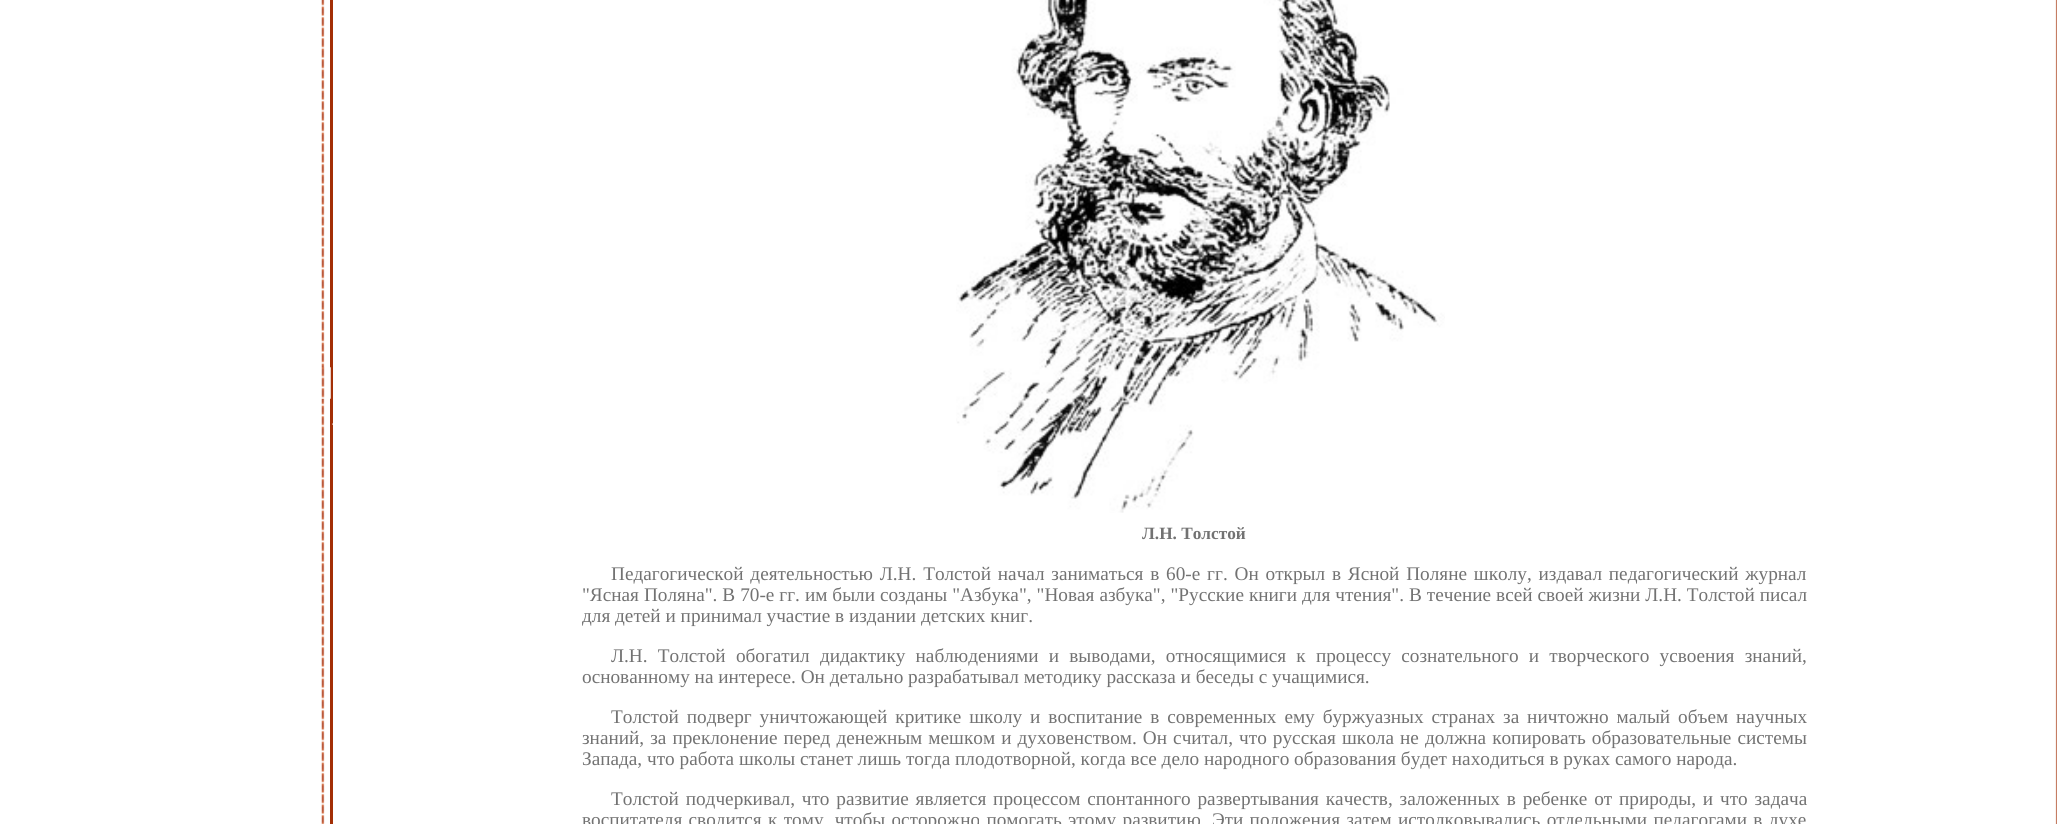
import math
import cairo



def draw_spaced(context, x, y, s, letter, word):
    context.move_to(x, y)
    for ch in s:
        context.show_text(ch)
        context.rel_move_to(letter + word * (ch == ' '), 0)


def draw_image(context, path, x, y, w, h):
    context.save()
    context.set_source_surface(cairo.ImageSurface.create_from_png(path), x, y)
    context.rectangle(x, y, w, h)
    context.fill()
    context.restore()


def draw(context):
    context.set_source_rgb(1, 1, 1)
    context.paint()
    draw_image(context, "images/1.png", 321, 0, 4, 824)
    context.set_source_rgb(163 / 255, 47 / 255, 6 / 255)
    context.rectangle(330, 0, 3, 824)
    context.fill()
    draw_image(context, "images/2.png", 321, 367, 10, 32)
    draw_image(context, "images/3.png", 332, 423, 1, 2)
    draw_image(context, "images/4.png", 956, 0, 489, 513)
    draw_image(context, "images/5.png", 2055, 0, 2, 824)
    context.select_font_face("Liberation Serif", cairo.FontSlant.NORMAL, cairo.FontWeight.BOLD)
    context.set_font_size(17.25)
    context.set_source_rgb(114 / 255, 114 / 255, 114 / 255)
    context.move_to(1142, 539)
    context.show_text("Л.Н. Толстой")
    context.select_font_face("Liberation Serif")
    context.set_font_size(19.25)
    draw_spaced(context, 611, 580, "Педагогической деятельностью Л.Н. Толстой начал заниматься в 60-е гг. Он открыл в Ясной Поляне школу, издавал педагогический журнал", 0, 2)
    draw_spaced(context, 582, 601, "\"Ясная Поляна\". В 70-е гг. им были созданы \"Азбука\", \"Новая азбука\", \"Русские книги для чтения\". В течение всей своей жизни Л.Н. Толстой писал", 0, 0.15)
    context.move_to(582, 622)
    context.show_text("для детей и принимал участие в издании детских книг.")
    draw_spaced(context, 611, 662, "Л.Н. Толстой обогатил дидактику наблюдениями и выводами, относящимися к процессу сознательного и творческого усвоения знаний,", 0, 5.4)
    context.move_to(582, 683)
    context.show_text("основанному на интересе. Он детально разрабатывал методику рассказа и беседы с учащимися.")
    draw_spaced(context, 611, 723, "Толстой подверг уничтожающей критике школу и воспитание в современных ему буржуазных странах за ничтожно малый объем научных", 0, 3.1)
    draw_spaced(context, 582, 744, "знаний, за преклонение перед денежным мешком и духовенством. Он считал, что русская школа не должна копировать образовательные системы", 0, 1.25)
    context.move_to(582, 765)
    context.show_text("Запада, что работа школы станет лишь тогда плодотворной, когда все дело народного образования будет находиться в руках самого народа.")
    draw_spaced(context, 611, 805, "Толстой подчеркивал, что развитие является процессом спонтанного развертывания качеств, заложенных в ребенке от природы, и что задача", 0, 2)
    draw_spaced(context, 582, 826, "воспитателя сводится к тому, чтобы осторожно помогать этому развитию. Эти положения затем истолковывались отдельными педагогами в духе", 0, 1.5)


surface = cairo.ImageSurface(cairo.Format.RGB24, 2057, 824)
context = cairo.Context(surface)
options = cairo.FontOptions()
options.set_hint_metrics(cairo.HintMetrics.OFF)
options.set_hint_style(cairo.HintStyle.NONE)
context.set_font_options(options)
context.set_miter_limit(4)
draw(context)
surface.write_to_png("out.png")
